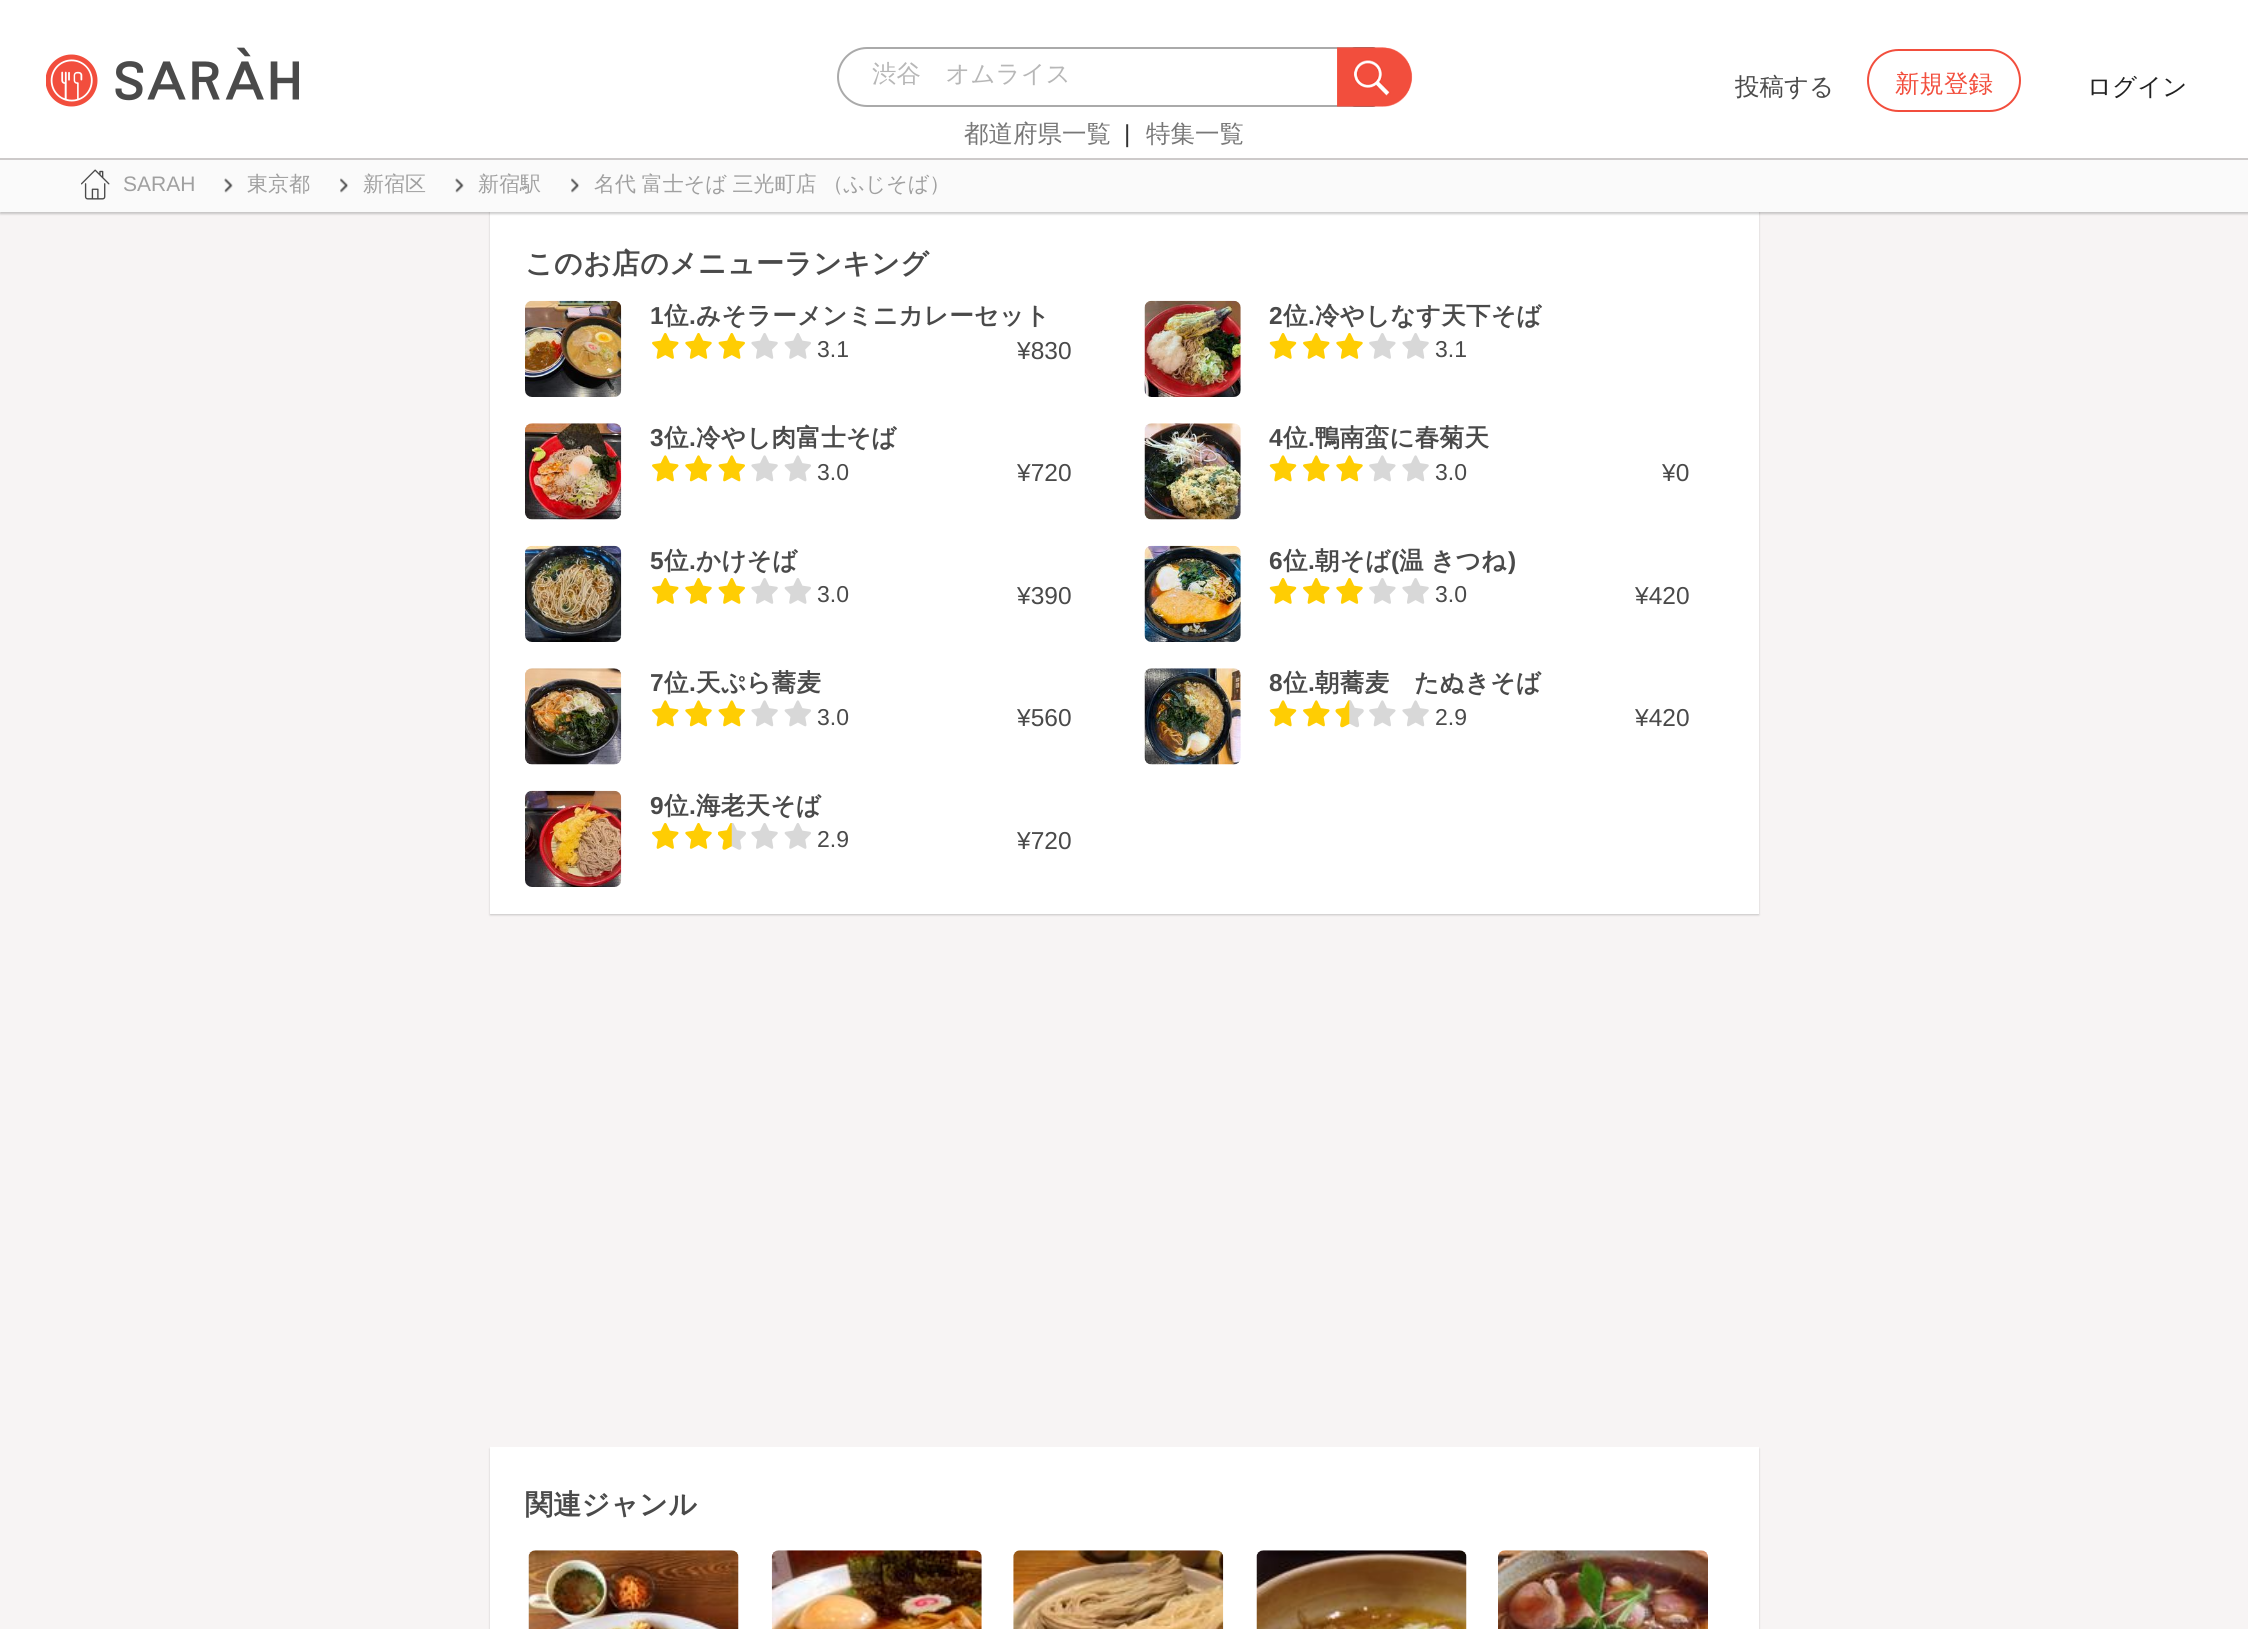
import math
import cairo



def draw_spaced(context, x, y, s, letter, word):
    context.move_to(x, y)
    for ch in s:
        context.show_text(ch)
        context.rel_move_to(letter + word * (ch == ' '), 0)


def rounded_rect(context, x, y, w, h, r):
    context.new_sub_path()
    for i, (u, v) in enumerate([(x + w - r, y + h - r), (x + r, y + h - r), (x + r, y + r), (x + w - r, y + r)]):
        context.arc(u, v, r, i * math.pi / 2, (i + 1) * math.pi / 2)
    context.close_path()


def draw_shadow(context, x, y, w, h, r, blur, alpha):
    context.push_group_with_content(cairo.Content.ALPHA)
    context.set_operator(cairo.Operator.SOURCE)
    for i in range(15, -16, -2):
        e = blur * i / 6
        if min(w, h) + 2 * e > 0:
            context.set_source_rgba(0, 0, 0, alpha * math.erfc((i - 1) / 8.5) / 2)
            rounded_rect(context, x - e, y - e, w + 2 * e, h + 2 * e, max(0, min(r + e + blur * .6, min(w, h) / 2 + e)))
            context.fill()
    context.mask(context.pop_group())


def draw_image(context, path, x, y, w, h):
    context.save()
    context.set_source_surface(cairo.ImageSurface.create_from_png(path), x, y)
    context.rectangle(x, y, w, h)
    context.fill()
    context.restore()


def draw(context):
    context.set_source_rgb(247 / 255, 244 / 255, 244 / 255)
    context.paint()
    context.set_source_rgb(0, 0, 0)
    draw_shadow(context, 490, 205, 1269, 710, 0, 1, 0.2)
    context.set_source_rgb(1, 1, 1)
    context.rectangle(490, 212, 1269, 702)
    context.fill()
    context.set_source_rgb(0, 0, 0)
    draw_shadow(context, 0, 161, 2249, 53, 0, 1, 0.2)
    context.set_source_rgb(1, 1, 1)
    context.rectangle(0, 0, 2248, 158)
    context.fill()
    context.set_source_rgb(205 / 255, 202 / 255, 202 / 255)
    context.rectangle(0, 158, 2248, 2)
    context.fill()
    draw_image(context, "images/1.png", 46, 47, 253, 60)
    context.new_path()
    context.move_to(867, 48)
    context.line_to(1355, 48)
    context.line_to(1355, 106)
    context.line_to(867, 106)
    context.curve_to(851, 106, 838, 93, 838, 77)
    context.curve_to(838, 61, 851, 48, 867, 48)
    context.close_path()
    context.set_source_rgb(170 / 255, 170 / 255, 170 / 255)
    context.stroke()
    rounded_rect(context, 1352, 48, 24, 58, 3)
    context.set_source_rgb(118 / 255, 118 / 255, 118 / 255)
    context.stroke()
    draw_image(context, "images/2.png", 1337, 47, 76, 60)
    rounded_rect(context, 1868, 50, 152, 61, 30.5)
    context.set_source_rgb(242 / 255, 78 / 255, 61 / 255)
    context.stroke()
    context.set_source_rgb(250 / 255, 250 / 255, 250 / 255)
    context.rectangle(0, 160, 2248, 52)
    context.fill()
    draw_image(context, "images/3.png", 81, 169, 29, 31)
    draw_image(context, "images/4.png", 224, 178, 9, 15)
    draw_image(context, "images/5.png", 340, 178, 9, 15)
    draw_image(context, "images/4.png", 455, 178, 9, 15)
    draw_image(context, "images/5.png", 571, 178, 9, 15)
    draw_image(context, "images/6.png", 525, 300, 97, 97)
    draw_image(context, "images/7.png", 652, 333, 27, 26)
    draw_image(context, "images/8.png", 685, 333, 27, 26)
    draw_image(context, "images/9.png", 718, 333, 27, 26)
    draw_image(context, "images/10.png", 751, 333, 27, 26)
    draw_image(context, "images/11.png", 784, 333, 27, 26)
    draw_image(context, "images/12.png", 1144, 300, 97, 97)
    draw_image(context, "images/13.png", 1269, 333, 28, 26)
    draw_image(context, "images/7.png", 1303, 333, 27, 26)
    draw_image(context, "images/8.png", 1336, 333, 27, 26)
    draw_image(context, "images/14.png", 1369, 333, 27, 26)
    draw_image(context, "images/10.png", 1402, 333, 27, 26)
    draw_image(context, "images/15.png", 525, 423, 97, 97)
    draw_image(context, "images/16.png", 652, 455, 27, 27)
    draw_image(context, "images/17.png", 685, 455, 27, 27)
    draw_image(context, "images/18.png", 718, 455, 27, 27)
    draw_image(context, "images/19.png", 751, 455, 27, 27)
    draw_image(context, "images/20.png", 784, 455, 27, 27)
    draw_image(context, "images/21.png", 1144, 423, 97, 97)
    draw_image(context, "images/22.png", 1269, 455, 28, 27)
    draw_image(context, "images/16.png", 1303, 455, 27, 27)
    draw_image(context, "images/17.png", 1336, 455, 27, 27)
    draw_image(context, "images/23.png", 1369, 455, 27, 27)
    draw_image(context, "images/19.png", 1402, 455, 27, 27)
    draw_image(context, "images/24.png", 525, 545, 97, 97)
    draw_image(context, "images/7.png", 652, 578, 27, 26)
    draw_image(context, "images/8.png", 685, 578, 27, 26)
    draw_image(context, "images/9.png", 718, 578, 27, 26)
    draw_image(context, "images/10.png", 751, 578, 27, 26)
    draw_image(context, "images/11.png", 784, 578, 27, 26)
    draw_image(context, "images/25.png", 1144, 545, 97, 97)
    draw_image(context, "images/13.png", 1269, 578, 28, 26)
    draw_image(context, "images/7.png", 1303, 578, 27, 26)
    draw_image(context, "images/8.png", 1336, 578, 27, 26)
    draw_image(context, "images/14.png", 1369, 578, 27, 26)
    draw_image(context, "images/10.png", 1402, 578, 27, 26)
    draw_image(context, "images/26.png", 525, 668, 97, 97)
    draw_image(context, "images/16.png", 652, 700, 27, 27)
    draw_image(context, "images/17.png", 685, 700, 27, 27)
    draw_image(context, "images/18.png", 718, 700, 27, 27)
    draw_image(context, "images/19.png", 751, 700, 27, 27)
    draw_image(context, "images/20.png", 784, 700, 27, 27)
    draw_image(context, "images/27.png", 1144, 668, 97, 97)
    draw_image(context, "images/22.png", 1269, 700, 28, 27)
    draw_image(context, "images/16.png", 1303, 700, 27, 27)
    draw_image(context, "images/28.png", 1335, 700, 29, 28)
    draw_image(context, "images/23.png", 1369, 700, 27, 27)
    draw_image(context, "images/19.png", 1402, 700, 27, 27)
    draw_image(context, "images/29.png", 525, 790, 97, 97)
    draw_image(context, "images/7.png", 652, 823, 27, 26)
    draw_image(context, "images/8.png", 685, 823, 27, 26)
    draw_image(context, "images/30.png", 718, 823, 28, 27)
    draw_image(context, "images/10.png", 751, 823, 27, 26)
    draw_image(context, "images/11.png", 784, 823, 27, 26)
    context.set_source_rgb(0, 0, 0)
    draw_shadow(context, 490, 1449, 1269, 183, 0, 1, 0.2)
    context.set_source_rgb(1, 1, 1)
    context.rectangle(490, 1447, 1269, 182)
    context.fill()
    draw_image(context, "images/31.png", 528, 1550, 211, 79)
    draw_image(context, "images/32.png", 771, 1550, 211, 79)
    draw_image(context, "images/33.png", 1013, 1550, 211, 79)
    draw_image(context, "images/34.png", 1256, 1550, 211, 79)
    draw_image(context, "images/35.png", 1498, 1550, 210, 79)
    context.select_font_face("WenQuanYi Zen Hei Medium")
    context.set_font_size(24.5)
    context.set_source_rgb(183 / 255, 183 / 255, 183 / 255)
    context.move_to(872, 82)
    context.show_text("渋谷　オムライス")
    context.set_source_rgb(119 / 255, 119 / 255, 119 / 255)
    context.move_to(964, 142)
    context.show_text("都道府県一覧")
    context.select_font_face("Liberation Sans")
    context.set_source_rgb(51 / 255, 51 / 255, 51 / 255)
    context.move_to(1124, 142)
    context.show_text("|")
    context.select_font_face("WenQuanYi Zen Hei Medium")
    context.set_source_rgb(119 / 255, 119 / 255, 119 / 255)
    context.move_to(1146, 142)
    context.show_text("特集一覧")
    context.set_source_rgb(74 / 255, 74 / 255, 74 / 255)
    context.move_to(1735, 95)
    context.show_text("投稿する")
    context.set_source_rgb(242 / 255, 78 / 255, 61 / 255)
    context.move_to(1895, 92)
    context.show_text("新規登録")
    context.set_source_rgb(33 / 255, 33 / 255, 33 / 255)
    context.move_to(2087, 95)
    context.show_text("ログイン")
    context.select_font_face("Liberation Sans")
    context.set_font_size(21)
    context.set_source_rgb(160 / 255, 160 / 255, 160 / 255)
    context.move_to(123, 191)
    context.show_text("SARAH")
    context.select_font_face("WenQuanYi Zen Hei Medium")
    context.move_to(247, 191)
    context.show_text("東京都")
    context.move_to(363, 191)
    context.show_text("新宿区")
    context.move_to(478, 191)
    context.show_text("新宿駅")
    draw_spaced(context, 594, 191, "名代 富士そば 三光町店 （ふじそば）", 0, -0.5)
    context.select_font_face("WenQuanYi Zen Hei", cairo.FontSlant.NORMAL, cairo.FontWeight.BOLD)
    context.set_font_size(28)
    context.set_source_rgb(74 / 255, 74 / 255, 74 / 255)
    draw_spaced(context, 525, 273, "このお店のメニューランキング", 0.3, 0)
    context.select_font_face("Liberation Sans", cairo.FontSlant.NORMAL, cairo.FontWeight.BOLD)
    context.set_font_size(24.5)
    draw_spaced(context, 650, 324, "1", 0.3, 0)
    context.select_font_face("WenQuanYi Zen Hei", cairo.FontSlant.NORMAL, cairo.FontWeight.BOLD)
    draw_spaced(context, 664, 324, "位", 0.3, 0)
    context.select_font_face("Liberation Sans", cairo.FontSlant.NORMAL, cairo.FontWeight.BOLD)
    draw_spaced(context, 689, 324, ".", 0.3, 0)
    context.select_font_face("WenQuanYi Zen Hei", cairo.FontSlant.NORMAL, cairo.FontWeight.BOLD)
    draw_spaced(context, 696, 324, "みそラーメンミニカレーセット", 0.3, 0)
    context.select_font_face("Liberation Sans")
    context.set_font_size(23)
    context.move_to(817, 357)
    context.show_text("3.1")
    context.set_font_size(24.5)
    context.move_to(1017, 359)
    context.show_text("¥830")
    context.select_font_face("Liberation Sans", cairo.FontSlant.NORMAL, cairo.FontWeight.BOLD)
    draw_spaced(context, 1269, 324, "2", 0.3, 0)
    context.select_font_face("WenQuanYi Zen Hei", cairo.FontSlant.NORMAL, cairo.FontWeight.BOLD)
    draw_spaced(context, 1283, 324, "位", 0.3, 0)
    context.select_font_face("Liberation Sans", cairo.FontSlant.NORMAL, cairo.FontWeight.BOLD)
    draw_spaced(context, 1308, 324, ".", 0.3, 0)
    context.select_font_face("WenQuanYi Zen Hei", cairo.FontSlant.NORMAL, cairo.FontWeight.BOLD)
    draw_spaced(context, 1315, 324, "冷やしなす天下そば", 0.3, 0)
    context.select_font_face("Liberation Sans")
    context.set_font_size(23)
    context.move_to(1435, 357)
    context.show_text("3.1")
    context.select_font_face("Liberation Sans", cairo.FontSlant.NORMAL, cairo.FontWeight.BOLD)
    context.set_font_size(24.5)
    draw_spaced(context, 650, 446, "3", 0.3, 0)
    context.select_font_face("WenQuanYi Zen Hei", cairo.FontSlant.NORMAL, cairo.FontWeight.BOLD)
    draw_spaced(context, 664, 446, "位", 0.3, 0)
    context.select_font_face("Liberation Sans", cairo.FontSlant.NORMAL, cairo.FontWeight.BOLD)
    draw_spaced(context, 689, 446, ".", 0.3, 0)
    context.select_font_face("WenQuanYi Zen Hei", cairo.FontSlant.NORMAL, cairo.FontWeight.BOLD)
    draw_spaced(context, 696, 446, "冷やし肉富士そば", 0.3, 0)
    context.select_font_face("Liberation Sans")
    context.set_font_size(23)
    context.move_to(817, 480)
    context.show_text("3.0")
    context.set_font_size(24.5)
    context.move_to(1017, 481)
    context.show_text("¥720")
    context.select_font_face("Liberation Sans", cairo.FontSlant.NORMAL, cairo.FontWeight.BOLD)
    draw_spaced(context, 1269, 446, "4", 0.3, 0)
    context.select_font_face("WenQuanYi Zen Hei", cairo.FontSlant.NORMAL, cairo.FontWeight.BOLD)
    draw_spaced(context, 1283, 446, "位", 0.3, 0)
    context.select_font_face("Liberation Sans", cairo.FontSlant.NORMAL, cairo.FontWeight.BOLD)
    draw_spaced(context, 1308, 446, ".", 0.3, 0)
    context.select_font_face("WenQuanYi Zen Hei", cairo.FontSlant.NORMAL, cairo.FontWeight.BOLD)
    draw_spaced(context, 1315, 446, "鴨南蛮に春菊天", 0.3, 0)
    context.select_font_face("Liberation Sans")
    context.set_font_size(23)
    context.move_to(1435, 480)
    context.show_text("3.0")
    context.set_font_size(24.5)
    context.move_to(1662, 481)
    context.show_text("¥0")
    context.select_font_face("Liberation Sans", cairo.FontSlant.NORMAL, cairo.FontWeight.BOLD)
    draw_spaced(context, 650, 569, "5", 0.3, 0)
    context.select_font_face("WenQuanYi Zen Hei", cairo.FontSlant.NORMAL, cairo.FontWeight.BOLD)
    draw_spaced(context, 664, 569, "位", 0.3, 0)
    context.select_font_face("Liberation Sans", cairo.FontSlant.NORMAL, cairo.FontWeight.BOLD)
    draw_spaced(context, 689, 569, ".", 0.3, 0)
    context.select_font_face("WenQuanYi Zen Hei", cairo.FontSlant.NORMAL, cairo.FontWeight.BOLD)
    draw_spaced(context, 696, 569, "かけそば", 0.3, 0)
    context.select_font_face("Liberation Sans")
    context.set_font_size(23)
    context.move_to(817, 602)
    context.show_text("3.0")
    context.set_font_size(24.5)
    context.move_to(1017, 604)
    context.show_text("¥390")
    context.select_font_face("Liberation Sans", cairo.FontSlant.NORMAL, cairo.FontWeight.BOLD)
    draw_spaced(context, 1269, 569, "6", 0.3, 0)
    context.select_font_face("WenQuanYi Zen Hei", cairo.FontSlant.NORMAL, cairo.FontWeight.BOLD)
    draw_spaced(context, 1283, 569, "位", 0.3, 0)
    context.select_font_face("Liberation Sans", cairo.FontSlant.NORMAL, cairo.FontWeight.BOLD)
    draw_spaced(context, 1308, 569, ".", 0.3, 0)
    context.select_font_face("WenQuanYi Zen Hei", cairo.FontSlant.NORMAL, cairo.FontWeight.BOLD)
    draw_spaced(context, 1315, 569, "朝そば", 0.3, 0)
    context.select_font_face("Liberation Sans", cairo.FontSlant.NORMAL, cairo.FontWeight.BOLD)
    draw_spaced(context, 1391, 569, "(", 0.3, 0)
    context.select_font_face("WenQuanYi Zen Hei", cairo.FontSlant.NORMAL, cairo.FontWeight.BOLD)
    draw_spaced(context, 1399, 569, "温 きつね", 0.3, -1)
    context.select_font_face("Liberation Sans", cairo.FontSlant.NORMAL, cairo.FontWeight.BOLD)
    draw_spaced(context, 1508, 569, ")", 0.3, 0)
    context.select_font_face("Liberation Sans")
    context.set_font_size(23)
    context.move_to(1435, 602)
    context.show_text("3.0")
    context.set_font_size(24.5)
    context.move_to(1635, 604)
    context.show_text("¥420")
    context.select_font_face("Liberation Sans", cairo.FontSlant.NORMAL, cairo.FontWeight.BOLD)
    draw_spaced(context, 650, 691, "7", 0.3, 0)
    context.select_font_face("WenQuanYi Zen Hei", cairo.FontSlant.NORMAL, cairo.FontWeight.BOLD)
    draw_spaced(context, 664, 691, "位", 0.3, 0)
    context.select_font_face("Liberation Sans", cairo.FontSlant.NORMAL, cairo.FontWeight.BOLD)
    draw_spaced(context, 689, 691, ".", 0.3, 0)
    context.select_font_face("WenQuanYi Zen Hei", cairo.FontSlant.NORMAL, cairo.FontWeight.BOLD)
    draw_spaced(context, 696, 691, "天ぷら蕎麦", 0.3, 0)
    context.select_font_face("Liberation Sans")
    context.set_font_size(23)
    context.move_to(817, 725)
    context.show_text("3.0")
    context.set_font_size(24.5)
    context.move_to(1017, 726)
    context.show_text("¥560")
    context.select_font_face("Liberation Sans", cairo.FontSlant.NORMAL, cairo.FontWeight.BOLD)
    draw_spaced(context, 1269, 691, "8", 0.3, 0)
    context.select_font_face("WenQuanYi Zen Hei", cairo.FontSlant.NORMAL, cairo.FontWeight.BOLD)
    draw_spaced(context, 1283, 691, "位", 0.3, 0)
    context.select_font_face("Liberation Sans", cairo.FontSlant.NORMAL, cairo.FontWeight.BOLD)
    draw_spaced(context, 1308, 691, ".", 0.3, 0)
    context.select_font_face("WenQuanYi Zen Hei", cairo.FontSlant.NORMAL, cairo.FontWeight.BOLD)
    draw_spaced(context, 1315, 691, "朝蕎麦　たぬきそば", 0.3, 0)
    context.select_font_face("Liberation Sans")
    context.set_font_size(23)
    context.move_to(1435, 725)
    context.show_text("2.9")
    context.set_font_size(24.5)
    context.move_to(1635, 726)
    context.show_text("¥420")
    context.select_font_face("Liberation Sans", cairo.FontSlant.NORMAL, cairo.FontWeight.BOLD)
    draw_spaced(context, 650, 814, "9", 0.3, 0)
    context.select_font_face("WenQuanYi Zen Hei", cairo.FontSlant.NORMAL, cairo.FontWeight.BOLD)
    draw_spaced(context, 664, 814, "位", 0.3, 0)
    context.select_font_face("Liberation Sans", cairo.FontSlant.NORMAL, cairo.FontWeight.BOLD)
    draw_spaced(context, 689, 814, ".", 0.3, 0)
    context.select_font_face("WenQuanYi Zen Hei", cairo.FontSlant.NORMAL, cairo.FontWeight.BOLD)
    draw_spaced(context, 696, 814, "海老天そば", 0.3, 0)
    context.select_font_face("Liberation Sans")
    context.set_font_size(23)
    context.move_to(817, 847)
    context.show_text("2.9")
    context.set_font_size(24.5)
    context.move_to(1017, 849)
    context.show_text("¥720")
    context.select_font_face("WenQuanYi Zen Hei", cairo.FontSlant.NORMAL, cairo.FontWeight.BOLD)
    context.set_font_size(28)
    draw_spaced(context, 525, 1514, "関連ジャンル", 0.25, 0)


surface = cairo.ImageSurface(cairo.Format.RGB24, 2248, 1629)
context = cairo.Context(surface)
options = cairo.FontOptions()
options.set_hint_metrics(cairo.HintMetrics.OFF)
options.set_hint_style(cairo.HintStyle.NONE)
context.set_font_options(options)
context.set_miter_limit(4)
draw(context)
surface.write_to_png("out.png")
